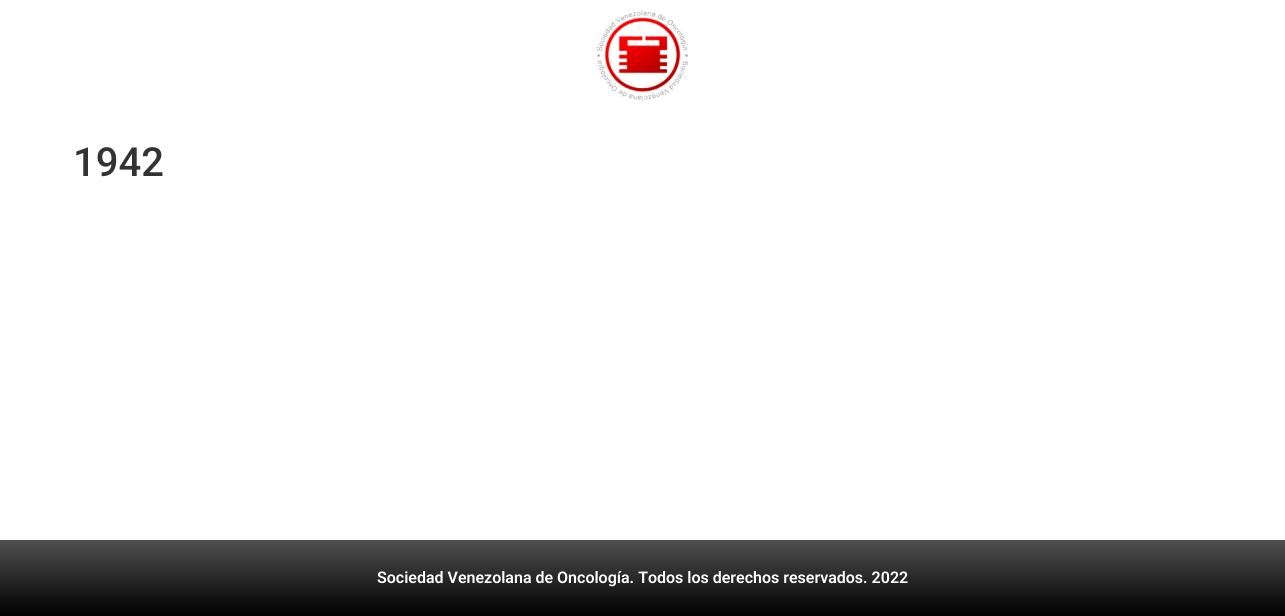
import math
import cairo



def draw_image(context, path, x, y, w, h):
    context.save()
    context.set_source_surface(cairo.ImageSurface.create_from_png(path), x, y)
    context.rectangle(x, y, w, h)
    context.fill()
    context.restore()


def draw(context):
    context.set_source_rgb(1, 1, 1)
    context.paint()
    draw_image(context, "images/1.png", 597, 10, 91, 91)
    gradient = cairo.LinearGradient(643, 540, 643, 616)
    gradient.add_color_stop_rgba(0, 80 / 255, 80 / 255, 80 / 255, 1)
    gradient.add_color_stop_rgba(1, 0, 0, 0, 1)
    context.set_source(gradient)
    context.rectangle(0, 540, 1285, 76)
    context.fill()
    context.select_font_face("Roboto Medium")
    context.set_font_size(40)
    context.set_source_rgb(51 / 255, 51 / 255, 51 / 255)
    context.move_to(73, 176)
    context.show_text("1942")
    context.select_font_face("Roboto SemiBold")
    context.set_font_size(16)
    context.set_source_rgb(1, 1, 1)
    context.move_to(377, 583)
    context.show_text("Sociedad Venezolana de Oncología. Todos los derechos reservados. 2022")


surface = cairo.ImageSurface(cairo.Format.RGB24, 1285, 616)
context = cairo.Context(surface)
options = cairo.FontOptions()
options.set_hint_metrics(cairo.HintMetrics.OFF)
options.set_hint_style(cairo.HintStyle.NONE)
context.set_font_options(options)
context.set_miter_limit(4)
draw(context)
surface.write_to_png("out.png")
